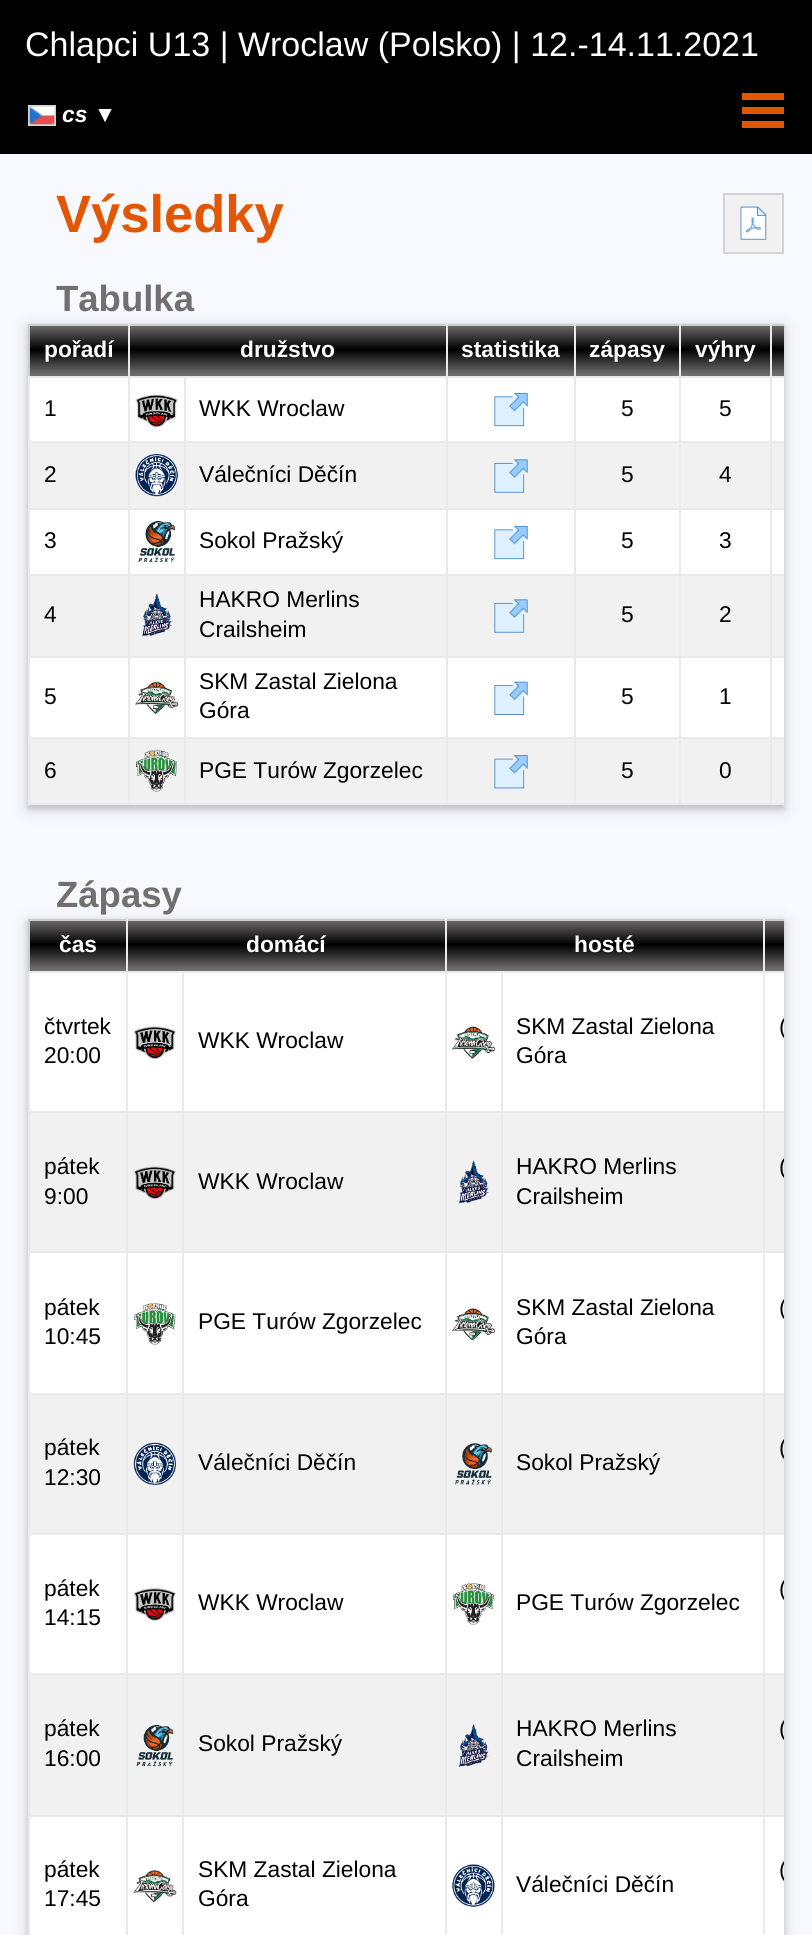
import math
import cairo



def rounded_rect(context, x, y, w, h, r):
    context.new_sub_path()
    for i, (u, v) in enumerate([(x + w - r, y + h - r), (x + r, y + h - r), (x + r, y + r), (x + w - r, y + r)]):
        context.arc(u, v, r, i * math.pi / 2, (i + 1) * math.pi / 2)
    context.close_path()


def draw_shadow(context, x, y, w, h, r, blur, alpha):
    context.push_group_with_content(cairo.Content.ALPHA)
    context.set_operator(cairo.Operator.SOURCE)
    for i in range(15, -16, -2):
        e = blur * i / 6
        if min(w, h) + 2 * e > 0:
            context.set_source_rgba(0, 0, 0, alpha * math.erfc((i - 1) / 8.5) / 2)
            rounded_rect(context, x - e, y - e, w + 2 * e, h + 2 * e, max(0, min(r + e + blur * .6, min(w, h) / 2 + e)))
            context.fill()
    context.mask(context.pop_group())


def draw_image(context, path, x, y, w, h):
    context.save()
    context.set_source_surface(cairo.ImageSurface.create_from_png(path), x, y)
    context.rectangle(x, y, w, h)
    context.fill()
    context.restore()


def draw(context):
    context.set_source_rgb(248 / 255, 248 / 255, 1)
    context.paint()
    context.set_source_rgb(0, 0, 0)
    context.rectangle(0, 0, 812, 154)
    context.fill()
    context.rectangle(29, 106, 26, 19)
    context.set_source_rgb(211 / 255, 211 / 255, 211 / 255)
    context.stroke()
    draw_image(context, "images/1.png", 29, 106, 26, 19)
    context.set_source_rgb(227 / 255, 86 / 255, 0)
    context.rectangle(742, 93, 42, 7)
    context.fill()
    context.rectangle(742, 121, 42, 7)
    context.fill()
    context.rectangle(742, 107, 42, 7)
    context.fill()
    context.set_source_rgb(241 / 255, 241 / 255, 241 / 255)
    context.rectangle(724, 194, 59, 59)
    context.fill_preserve()
    context.set_source_rgb(211 / 255, 211 / 255, 211 / 255)
    context.stroke()
    draw_image(context, "images/2.png", 740, 206, 27, 34)
    context.set_source_rgb(0, 0, 0)
    draw_shadow(context, 28, 327, 756, 482, 0, 9, 0.12)
    draw_shadow(context, 28, 327, 756, 482, 0, 3.5, 0.16)
    context.set_source_rgb(204 / 255, 204 / 255, 204 / 255)
    context.rectangle(28, 324, 756, 2)
    context.fill()
    context.rectangle(28, 324, 2, 52)
    context.fill()
    gradient = cairo.LinearGradient(557, 375, 557, 324)
    gradient.add_color_stop_rgba(0, 114 / 255, 111 / 255, 111 / 255, 1)
    gradient.add_color_stop_rgba(0.5, 0, 0, 0, 1)
    gradient.add_color_stop_rgba(1, 114 / 255, 111 / 255, 111 / 255, 1)
    context.set_source(gradient)
    context.rectangle(30, 326, 754, 49)
    context.fill()
    gradient = cairo.LinearGradient(557, 425, 557, 375)
    gradient.add_color_stop_rgba(0, 114 / 255, 111 / 255, 111 / 255, 1)
    gradient.add_color_stop_rgba(0.5, 0, 0, 0, 1)
    gradient.add_color_stop_rgba(1, 114 / 255, 111 / 255, 111 / 255, 1)
    context.set_source(gradient)
    context.rectangle(30, 375, 754, 1)
    context.fill()
    context.set_source_rgb(234 / 255, 234 / 255, 234 / 255)
    context.rectangle(770, 376, 14, 2)
    context.fill()
    context.set_source_rgb(1, 1, 1)
    context.rectangle(30, 378, 754, 63)
    context.fill()
    context.set_source_rgb(234 / 255, 234 / 255, 234 / 255)
    context.rectangle(770, 441, 14, 2)
    context.fill()
    context.set_source_rgb(241 / 255, 241 / 255, 241 / 255)
    context.rectangle(30, 443, 754, 65)
    context.fill()
    context.set_source_rgb(234 / 255, 234 / 255, 234 / 255)
    context.rectangle(770, 508, 14, 2)
    context.fill()
    context.set_source_rgb(1, 1, 1)
    context.rectangle(30, 510, 754, 64)
    context.fill()
    context.set_source_rgb(234 / 255, 234 / 255, 234 / 255)
    context.rectangle(770, 574, 14, 2)
    context.fill()
    context.set_source_rgb(241 / 255, 241 / 255, 241 / 255)
    context.rectangle(30, 576, 754, 80)
    context.fill()
    context.set_source_rgb(234 / 255, 234 / 255, 234 / 255)
    context.rectangle(770, 656, 14, 2)
    context.fill()
    context.set_source_rgb(1, 1, 1)
    context.rectangle(30, 658, 754, 79)
    context.fill()
    context.set_source_rgb(234 / 255, 234 / 255, 234 / 255)
    context.rectangle(770, 737, 14, 2)
    context.fill()
    context.set_source_rgb(241 / 255, 241 / 255, 241 / 255)
    context.rectangle(30, 739, 754, 64)
    context.fill()
    context.set_source_rgb(234 / 255, 234 / 255, 234 / 255)
    context.rectangle(770, 803, 14, 2)
    context.fill()
    context.rectangle(770, 737, 2, 68)
    context.fill()
    context.rectangle(679, 737, 93, 2)
    context.fill()
    context.rectangle(770, 656, 2, 83)
    context.fill()
    context.rectangle(679, 656, 93, 2)
    context.fill()
    context.rectangle(770, 574, 2, 84)
    context.fill()
    context.rectangle(679, 574, 93, 2)
    context.fill()
    context.rectangle(770, 508, 2, 68)
    context.fill()
    context.rectangle(679, 508, 93, 2)
    context.fill()
    context.rectangle(770, 441, 2, 68)
    context.fill()
    context.rectangle(679, 441, 93, 2)
    context.fill()
    context.rectangle(770, 376, 2, 67)
    context.fill()
    context.rectangle(679, 376, 93, 2)
    context.fill()
    context.rectangle(679, 803, 93, 2)
    context.fill()
    context.rectangle(679, 737, 2, 68)
    context.fill()
    context.rectangle(574, 737, 107, 2)
    context.fill()
    context.rectangle(679, 656, 2, 83)
    context.fill()
    context.rectangle(574, 656, 107, 2)
    context.fill()
    context.rectangle(679, 574, 2, 84)
    context.fill()
    context.rectangle(574, 574, 107, 2)
    context.fill()
    context.rectangle(679, 508, 2, 68)
    context.fill()
    context.rectangle(574, 508, 107, 2)
    context.fill()
    context.rectangle(679, 441, 2, 68)
    context.fill()
    context.rectangle(574, 441, 107, 2)
    context.fill()
    context.rectangle(679, 376, 2, 67)
    context.fill()
    context.rectangle(574, 376, 107, 2)
    context.fill()
    context.rectangle(574, 803, 107, 2)
    context.fill()
    context.rectangle(574, 737, 2, 68)
    context.fill()
    context.rectangle(446, 737, 130, 2)
    context.fill()
    context.rectangle(574, 656, 2, 83)
    context.fill()
    context.rectangle(446, 656, 130, 2)
    context.fill()
    context.rectangle(574, 574, 2, 84)
    context.fill()
    context.rectangle(446, 574, 130, 2)
    context.fill()
    context.rectangle(574, 508, 2, 68)
    context.fill()
    context.rectangle(446, 508, 130, 2)
    context.fill()
    context.rectangle(574, 441, 2, 68)
    context.fill()
    context.rectangle(446, 441, 130, 2)
    context.fill()
    context.rectangle(574, 376, 2, 67)
    context.fill()
    context.rectangle(446, 376, 130, 2)
    context.fill()
    context.rectangle(446, 803, 130, 2)
    context.fill()
    context.rectangle(446, 737, 2, 68)
    context.fill()
    context.rectangle(184, 737, 264, 2)
    context.fill()
    context.rectangle(446, 656, 2, 83)
    context.fill()
    context.rectangle(184, 656, 264, 2)
    context.fill()
    context.rectangle(446, 574, 2, 84)
    context.fill()
    context.rectangle(184, 574, 264, 2)
    context.fill()
    context.rectangle(446, 508, 2, 68)
    context.fill()
    context.rectangle(184, 508, 264, 2)
    context.fill()
    context.rectangle(446, 441, 2, 68)
    context.fill()
    context.rectangle(184, 441, 264, 2)
    context.fill()
    context.rectangle(446, 376, 2, 67)
    context.fill()
    context.rectangle(184, 376, 264, 2)
    context.fill()
    context.rectangle(184, 803, 264, 2)
    context.fill()
    context.rectangle(184, 737, 2, 68)
    context.fill()
    context.rectangle(128, 737, 58, 2)
    context.fill()
    context.rectangle(184, 656, 2, 83)
    context.fill()
    context.rectangle(128, 656, 58, 2)
    context.fill()
    context.rectangle(184, 574, 2, 84)
    context.fill()
    context.rectangle(128, 574, 58, 2)
    context.fill()
    context.rectangle(184, 508, 2, 68)
    context.fill()
    context.rectangle(128, 508, 58, 2)
    context.fill()
    context.rectangle(184, 441, 2, 68)
    context.fill()
    context.rectangle(128, 441, 58, 2)
    context.fill()
    context.rectangle(184, 376, 2, 67)
    context.fill()
    context.rectangle(128, 376, 58, 2)
    context.fill()
    context.rectangle(128, 803, 58, 2)
    context.fill()
    context.rectangle(128, 737, 2, 68)
    context.fill()
    context.rectangle(28, 737, 102, 2)
    context.fill()
    context.rectangle(128, 656, 2, 83)
    context.fill()
    context.rectangle(28, 656, 102, 2)
    context.fill()
    context.rectangle(128, 574, 2, 84)
    context.fill()
    context.rectangle(28, 574, 102, 2)
    context.fill()
    context.rectangle(128, 508, 2, 68)
    context.fill()
    context.rectangle(28, 508, 102, 2)
    context.fill()
    context.rectangle(128, 441, 2, 68)
    context.fill()
    context.rectangle(28, 441, 102, 2)
    context.fill()
    context.rectangle(128, 376, 2, 67)
    context.fill()
    context.rectangle(28, 376, 102, 2)
    context.fill()
    context.rectangle(128, 324, 2, 54)
    context.fill()
    context.rectangle(446, 324, 2, 54)
    context.fill()
    context.rectangle(574, 324, 2, 54)
    context.fill()
    context.rectangle(679, 324, 2, 54)
    context.fill()
    context.rectangle(770, 324, 2, 54)
    context.fill()
    context.rectangle(28, 803, 102, 2)
    context.fill()
    context.rectangle(28, 737, 2, 68)
    context.fill()
    context.rectangle(28, 656, 2, 83)
    context.fill()
    context.rectangle(28, 574, 2, 84)
    context.fill()
    context.rectangle(28, 508, 2, 68)
    context.fill()
    context.rectangle(28, 441, 2, 68)
    context.fill()
    context.rectangle(28, 376, 2, 67)
    context.fill()
    draw_image(context, "images/3.png", 135, 394, 43, 34)
    draw_image(context, "images/4.png", 494, 392, 34, 35)
    draw_image(context, "images/5.png", 135, 454, 43, 43)
    draw_image(context, "images/6.png", 494, 459, 34, 34)
    draw_image(context, "images/7.png", 138, 520, 37, 43)
    draw_image(context, "images/4.png", 494, 525, 34, 35)
    draw_image(context, "images/8.png", 142, 594, 30, 43)
    draw_image(context, "images/6.png", 494, 599, 34, 34)
    draw_image(context, "images/9.png", 134, 681, 45, 34)
    draw_image(context, "images/10.png", 494, 681, 34, 34)
    draw_image(context, "images/11.png", 136, 750, 41, 42)
    draw_image(context, "images/12.png", 494, 755, 34, 34)
    context.set_source_rgb(0, 0, 0)
    draw_shadow(context, 28, 922, 756, 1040, 0, 9, 0.12)
    draw_shadow(context, 28, 922, 756, 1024, 0, 3.5, 0.16)
    context.set_source_rgb(204 / 255, 204 / 255, 204 / 255)
    context.rectangle(28, 919, 756, 2)
    context.fill()
    context.rectangle(28, 919, 2, 52)
    context.fill()
    gradient = cairo.LinearGradient(583, 970, 583, 919)
    gradient.add_color_stop_rgba(0, 114 / 255, 111 / 255, 111 / 255, 1)
    gradient.add_color_stop_rgba(0.5, 0, 0, 0, 1)
    gradient.add_color_stop_rgba(1, 114 / 255, 111 / 255, 111 / 255, 1)
    context.set_source(gradient)
    context.rectangle(30, 921, 754, 49)
    context.fill()
    gradient = cairo.LinearGradient(583, 1020, 583, 970)
    gradient.add_color_stop_rgba(0, 114 / 255, 111 / 255, 111 / 255, 1)
    gradient.add_color_stop_rgba(0.5, 0, 0, 0, 1)
    gradient.add_color_stop_rgba(1, 114 / 255, 111 / 255, 111 / 255, 1)
    context.set_source(gradient)
    context.rectangle(30, 970, 754, 1)
    context.fill()
    context.set_source_rgb(234 / 255, 234 / 255, 234 / 255)
    context.rectangle(763, 971, 21, 2)
    context.fill()
    context.set_source_rgb(1, 1, 1)
    context.rectangle(30, 973, 754, 138)
    context.fill()
    context.set_source_rgb(234 / 255, 234 / 255, 234 / 255)
    context.rectangle(763, 1111, 21, 2)
    context.fill()
    context.set_source_rgb(241 / 255, 241 / 255, 241 / 255)
    context.rectangle(30, 1113, 754, 138)
    context.fill()
    context.set_source_rgb(234 / 255, 234 / 255, 234 / 255)
    context.rectangle(763, 1251, 21, 2)
    context.fill()
    context.set_source_rgb(1, 1, 1)
    context.rectangle(30, 1253, 754, 140)
    context.fill()
    context.set_source_rgb(234 / 255, 234 / 255, 234 / 255)
    context.rectangle(763, 1393, 21, 2)
    context.fill()
    context.set_source_rgb(241 / 255, 241 / 255, 241 / 255)
    context.rectangle(30, 1395, 754, 138)
    context.fill()
    context.set_source_rgb(234 / 255, 234 / 255, 234 / 255)
    context.rectangle(763, 1533, 21, 2)
    context.fill()
    context.set_source_rgb(1, 1, 1)
    context.rectangle(30, 1535, 754, 138)
    context.fill()
    context.set_source_rgb(234 / 255, 234 / 255, 234 / 255)
    context.rectangle(763, 1673, 21, 2)
    context.fill()
    context.set_source_rgb(241 / 255, 241 / 255, 241 / 255)
    context.rectangle(30, 1675, 754, 140)
    context.fill()
    context.set_source_rgb(234 / 255, 234 / 255, 234 / 255)
    context.rectangle(763, 1815, 21, 2)
    context.fill()
    context.set_source_rgb(1, 1, 1)
    context.rectangle(30, 1817, 754, 118)
    context.fill()
    context.set_source_rgb(234 / 255, 234 / 255, 234 / 255)
    context.rectangle(763, 1815, 2, 120)
    context.fill()
    context.rectangle(501, 1815, 264, 2)
    context.fill()
    context.rectangle(763, 1673, 2, 144)
    context.fill()
    context.rectangle(501, 1673, 264, 2)
    context.fill()
    context.rectangle(763, 1533, 2, 142)
    context.fill()
    context.rectangle(501, 1533, 264, 2)
    context.fill()
    context.rectangle(763, 1393, 2, 142)
    context.fill()
    context.rectangle(501, 1393, 264, 2)
    context.fill()
    context.rectangle(763, 1251, 2, 144)
    context.fill()
    context.rectangle(501, 1251, 264, 2)
    context.fill()
    context.rectangle(763, 1111, 2, 142)
    context.fill()
    context.rectangle(501, 1111, 264, 2)
    context.fill()
    context.rectangle(763, 971, 2, 142)
    context.fill()
    context.rectangle(501, 971, 264, 2)
    context.fill()
    context.rectangle(501, 1815, 2, 120)
    context.fill()
    context.rectangle(445, 1815, 57, 2)
    context.fill()
    context.rectangle(501, 1673, 2, 144)
    context.fill()
    context.rectangle(445, 1673, 57, 2)
    context.fill()
    context.rectangle(501, 1533, 2, 142)
    context.fill()
    context.rectangle(445, 1533, 57, 2)
    context.fill()
    context.rectangle(501, 1393, 2, 142)
    context.fill()
    context.rectangle(445, 1393, 57, 2)
    context.fill()
    context.rectangle(501, 1251, 2, 144)
    context.fill()
    context.rectangle(445, 1251, 57, 2)
    context.fill()
    context.rectangle(501, 1111, 2, 142)
    context.fill()
    context.rectangle(445, 1111, 57, 2)
    context.fill()
    context.rectangle(501, 971, 2, 142)
    context.fill()
    context.rectangle(445, 971, 57, 2)
    context.fill()
    context.rectangle(445, 1815, 2, 120)
    context.fill()
    context.rectangle(182, 1815, 264, 2)
    context.fill()
    context.rectangle(445, 1673, 2, 144)
    context.fill()
    context.rectangle(182, 1673, 264, 2)
    context.fill()
    context.rectangle(445, 1533, 2, 142)
    context.fill()
    context.rectangle(182, 1533, 264, 2)
    context.fill()
    context.rectangle(445, 1393, 2, 142)
    context.fill()
    context.rectangle(182, 1393, 264, 2)
    context.fill()
    context.rectangle(445, 1251, 2, 144)
    context.fill()
    context.rectangle(182, 1251, 264, 2)
    context.fill()
    context.rectangle(445, 1111, 2, 142)
    context.fill()
    context.rectangle(182, 1111, 264, 2)
    context.fill()
    context.rectangle(445, 971, 2, 142)
    context.fill()
    context.rectangle(182, 971, 264, 2)
    context.fill()
    context.rectangle(182, 1815, 2, 120)
    context.fill()
    context.rectangle(126, 1815, 58, 2)
    context.fill()
    context.rectangle(182, 1673, 2, 144)
    context.fill()
    context.rectangle(126, 1673, 58, 2)
    context.fill()
    context.rectangle(182, 1533, 2, 142)
    context.fill()
    context.rectangle(126, 1533, 58, 2)
    context.fill()
    context.rectangle(182, 1393, 2, 142)
    context.fill()
    context.rectangle(126, 1393, 58, 2)
    context.fill()
    context.rectangle(182, 1251, 2, 144)
    context.fill()
    context.rectangle(126, 1251, 58, 2)
    context.fill()
    context.rectangle(182, 1111, 2, 142)
    context.fill()
    context.rectangle(126, 1111, 58, 2)
    context.fill()
    context.rectangle(182, 971, 2, 142)
    context.fill()
    context.rectangle(126, 971, 58, 2)
    context.fill()
    context.rectangle(126, 1815, 2, 120)
    context.fill()
    context.rectangle(28, 1815, 100, 2)
    context.fill()
    context.rectangle(126, 1673, 2, 144)
    context.fill()
    context.rectangle(28, 1673, 100, 2)
    context.fill()
    context.rectangle(126, 1533, 2, 142)
    context.fill()
    context.rectangle(28, 1533, 100, 2)
    context.fill()
    context.rectangle(126, 1393, 2, 142)
    context.fill()
    context.rectangle(28, 1393, 100, 2)
    context.fill()
    context.rectangle(126, 1251, 2, 144)
    context.fill()
    context.rectangle(28, 1251, 100, 2)
    context.fill()
    context.rectangle(126, 1111, 2, 142)
    context.fill()
    context.rectangle(28, 1111, 100, 2)
    context.fill()
    context.rectangle(126, 971, 2, 142)
    context.fill()
    context.rectangle(28, 971, 100, 2)
    context.fill()
    context.rectangle(126, 919, 2, 54)
    context.fill()
    context.rectangle(445, 919, 2, 54)
    context.fill()
    context.rectangle(763, 919, 2, 54)
    context.fill()
    context.rectangle(28, 1815, 2, 120)
    context.fill()
    context.rectangle(28, 1673, 2, 144)
    context.fill()
    context.rectangle(28, 1533, 2, 142)
    context.fill()
    context.rectangle(28, 1393, 2, 142)
    context.fill()
    context.rectangle(28, 1251, 2, 144)
    context.fill()
    context.rectangle(28, 1111, 2, 142)
    context.fill()
    context.rectangle(28, 971, 2, 142)
    context.fill()
    draw_image(context, "images/13.png", 133, 1026, 43, 33)
    draw_image(context, "images/14.png", 451, 1026, 45, 33)
    draw_image(context, "images/15.png", 133, 1166, 43, 33)
    draw_image(context, "images/16.png", 459, 1161, 30, 43)
    draw_image(context, "images/17.png", 134, 1303, 42, 42)
    draw_image(context, "images/18.png", 451, 1308, 45, 33)
    draw_image(context, "images/19.png", 133, 1442, 43, 43)
    draw_image(context, "images/20.png", 455, 1443, 37, 42)
    draw_image(context, "images/21.png", 133, 1588, 43, 33)
    draw_image(context, "images/22.png", 453, 1583, 41, 42)
    draw_image(context, "images/23.png", 136, 1724, 38, 43)
    draw_image(context, "images/24.png", 459, 1724, 30, 43)
    draw_image(context, "images/25.png", 133, 1870, 44, 33)
    draw_image(context, "images/26.png", 452, 1864, 43, 43)
    context.select_font_face("Liberation Sans")
    context.set_font_size(34)
    context.set_source_rgb(1, 1, 1)
    context.move_to(25, 56)
    context.show_text("Chlapci U13 | Wroclaw (Polsko) | 12.-14.11.2021")
    context.select_font_face("Liberation Sans", cairo.FontSlant.ITALIC, cairo.FontWeight.BOLD)
    context.set_font_size(22.75)
    context.move_to(62, 122)
    context.show_text("cs ▼")
    context.select_font_face("Liberation Sans", cairo.FontSlant.NORMAL, cairo.FontWeight.BOLD)
    context.set_font_size(52.5)
    context.set_source_rgb(227 / 255, 86 / 255, 0)
    context.move_to(56, 232)
    context.show_text("Výsledky")
    context.set_font_size(36.5)
    context.set_source_rgb(114 / 255, 111 / 255, 111 / 255)
    context.move_to(56, 311)
    context.show_text("Tabulka")
    context.set_font_size(22.75)
    context.set_source_rgb(1, 1, 1)
    context.move_to(44, 357)
    context.show_text("pořadí")
    context.move_to(240, 357)
    context.show_text("družstvo")
    context.move_to(461, 357)
    context.show_text("statistika")
    context.move_to(589, 357)
    context.show_text("zápasy")
    context.move_to(695, 357)
    context.show_text("výhry")
    context.select_font_face("Liberation Sans")
    context.set_source_rgb(0, 0, 0)
    context.move_to(44, 416)
    context.show_text("1")
    context.move_to(199, 416)
    context.show_text("WKK Wroclaw")
    context.move_to(621, 416)
    context.show_text("5")
    context.move_to(719, 416)
    context.show_text("5")
    context.move_to(44, 482)
    context.show_text("2")
    context.move_to(199, 482)
    context.show_text("Válečníci Děčín")
    context.move_to(621, 482)
    context.show_text("5")
    context.move_to(719, 482)
    context.show_text("4")
    context.move_to(44, 548)
    context.show_text("3")
    context.move_to(199, 548)
    context.show_text("Sokol Pražský")
    context.move_to(621, 548)
    context.show_text("5")
    context.move_to(719, 548)
    context.show_text("3")
    context.move_to(44, 622)
    context.show_text("4")
    context.move_to(199, 607)
    context.show_text("HAKRO Merlins")
    context.move_to(199, 637)
    context.show_text("Crailsheim")
    context.move_to(621, 622)
    context.show_text("5")
    context.move_to(719, 622)
    context.show_text("2")
    context.move_to(44, 704)
    context.show_text("5")
    context.move_to(199, 689)
    context.show_text("SKM Zastal Zielona")
    context.move_to(199, 718)
    context.show_text("Góra")
    context.move_to(621, 704)
    context.show_text("5")
    context.move_to(719, 704)
    context.show_text("1")
    context.move_to(44, 778)
    context.show_text("6")
    context.move_to(199, 778)
    context.show_text("PGE Turów Zgorzelec")
    context.move_to(621, 778)
    context.show_text("5")
    context.move_to(719, 778)
    context.show_text("0")
    context.select_font_face("Liberation Sans", cairo.FontSlant.NORMAL, cairo.FontWeight.BOLD)
    context.set_font_size(36.5)
    context.set_source_rgb(114 / 255, 111 / 255, 111 / 255)
    context.move_to(56, 907)
    context.show_text("Zápasy")
    context.set_font_size(22.75)
    context.set_source_rgb(1, 1, 1)
    context.move_to(59, 952)
    context.show_text("čas")
    context.move_to(246, 952)
    context.show_text("domácí")
    context.move_to(574, 952)
    context.show_text("hosté")
    context.select_font_face("Liberation Sans")
    context.set_source_rgb(0, 0, 0)
    context.move_to(44, 1034)
    context.show_text("čtvrtek")
    context.move_to(44, 1063)
    context.show_text("20:00")
    context.move_to(198, 1048)
    context.show_text("WKK Wroclaw")
    context.move_to(516, 1034)
    context.show_text("SKM Zastal Zielona")
    context.move_to(516, 1063)
    context.show_text("Góra")
    context.save()
    context.rectangle(28, 919, 756, 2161)
    context.clip()
    context.move_to(779, 1034)
    context.show_text("(")
    context.restore()
    context.move_to(44, 1174)
    context.show_text("pátek")
    context.move_to(44, 1204)
    context.show_text("9:00")
    context.move_to(516, 1174)
    context.show_text("HAKRO Merlins")
    context.move_to(516, 1204)
    context.show_text("Crailsheim")
    context.save()
    context.rectangle(28, 919, 756, 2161)
    context.clip()
    context.move_to(779, 1174)
    context.show_text("(")
    context.restore()
    context.move_to(198, 1189)
    context.show_text("WKK Wroclaw")
    context.move_to(44, 1315)
    context.show_text("pátek")
    context.move_to(44, 1344)
    context.show_text("10:45")
    context.move_to(516, 1315)
    context.show_text("SKM Zastal Zielona")
    context.move_to(516, 1344)
    context.show_text("Góra")
    context.save()
    context.rectangle(28, 919, 756, 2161)
    context.clip()
    context.move_to(779, 1315)
    context.show_text("(")
    context.restore()
    context.move_to(198, 1329)
    context.show_text("PGE Turów Zgorzelec")
    context.move_to(44, 1455)
    context.show_text("pátek")
    context.move_to(44, 1485)
    context.show_text("12:30")
    context.save()
    context.rectangle(28, 919, 756, 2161)
    context.clip()
    context.move_to(779, 1455)
    context.show_text("(")
    context.restore()
    context.move_to(198, 1470)
    context.show_text("Válečníci Děčín")
    context.move_to(516, 1470)
    context.show_text("Sokol Pražský")
    context.move_to(44, 1596)
    context.show_text("pátek")
    context.move_to(44, 1625)
    context.show_text("14:15")
    context.move_to(198, 1610)
    context.show_text("WKK Wroclaw")
    context.move_to(516, 1610)
    context.show_text("PGE Turów Zgorzelec")
    context.save()
    context.rectangle(28, 919, 756, 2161)
    context.clip()
    context.move_to(779, 1596)
    context.show_text("(")
    context.restore()
    context.move_to(44, 1736)
    context.show_text("pátek")
    context.move_to(44, 1766)
    context.show_text("16:00")
    context.move_to(516, 1736)
    context.show_text("HAKRO Merlins")
    context.move_to(516, 1766)
    context.show_text("Crailsheim")
    context.save()
    context.rectangle(28, 919, 756, 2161)
    context.clip()
    context.move_to(779, 1736)
    context.show_text("(")
    context.restore()
    context.move_to(198, 1751)
    context.show_text("Sokol Pražský")
    context.move_to(44, 1877)
    context.show_text("pátek")
    context.move_to(44, 1906)
    context.show_text("17:45")
    context.move_to(198, 1877)
    context.show_text("SKM Zastal Zielona")
    context.move_to(198, 1906)
    context.show_text("Góra")
    context.save()
    context.rectangle(28, 919, 756, 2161)
    context.clip()
    context.move_to(779, 1877)
    context.show_text("(")
    context.restore()
    context.move_to(516, 1892)
    context.show_text("Válečníci Děčín")


surface = cairo.ImageSurface(cairo.Format.RGB24, 812, 1935)
context = cairo.Context(surface)
options = cairo.FontOptions()
options.set_hint_metrics(cairo.HintMetrics.OFF)
options.set_hint_style(cairo.HintStyle.NONE)
context.set_font_options(options)
context.set_miter_limit(4)
draw(context)
surface.write_to_png("out.png")
